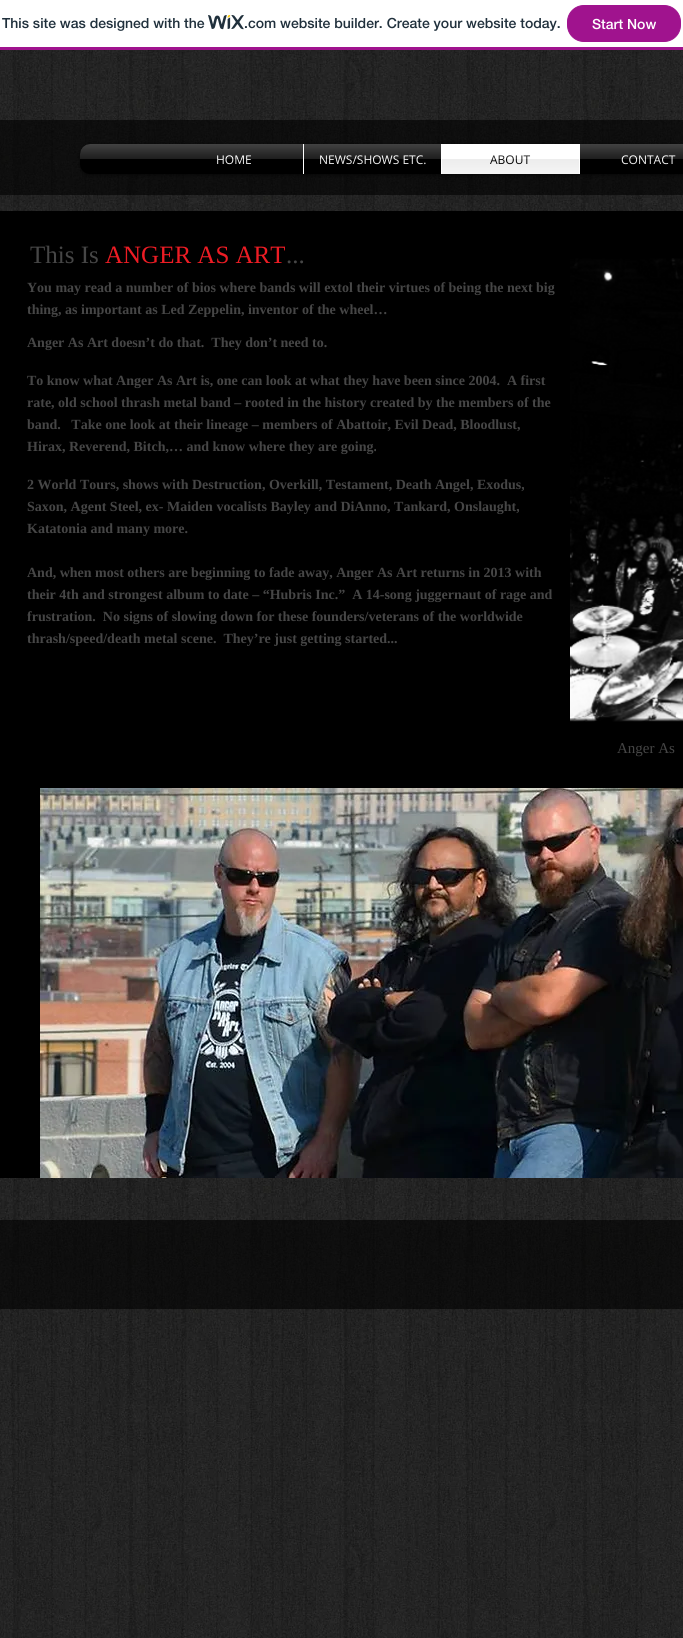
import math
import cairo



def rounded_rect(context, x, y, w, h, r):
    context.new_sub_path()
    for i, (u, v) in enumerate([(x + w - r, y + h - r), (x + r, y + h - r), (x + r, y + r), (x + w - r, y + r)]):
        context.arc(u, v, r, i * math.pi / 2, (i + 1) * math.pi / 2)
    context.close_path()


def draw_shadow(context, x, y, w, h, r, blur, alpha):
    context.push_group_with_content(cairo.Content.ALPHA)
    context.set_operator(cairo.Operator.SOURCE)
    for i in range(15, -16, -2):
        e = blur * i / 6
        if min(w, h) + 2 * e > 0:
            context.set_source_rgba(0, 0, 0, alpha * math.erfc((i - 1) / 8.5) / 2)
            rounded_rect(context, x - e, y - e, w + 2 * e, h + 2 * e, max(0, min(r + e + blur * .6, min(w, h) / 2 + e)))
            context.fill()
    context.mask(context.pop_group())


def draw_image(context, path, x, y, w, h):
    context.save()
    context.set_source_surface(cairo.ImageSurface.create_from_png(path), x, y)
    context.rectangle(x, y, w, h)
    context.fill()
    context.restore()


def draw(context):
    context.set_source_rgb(1, 1, 1)
    context.paint()
    context.set_source_rgb(160 / 255, 19 / 255, 142 / 255)
    context.rectangle(0, 47, 683, 3)
    context.fill()
    draw_image(context, "images/1.png", 208, 15, 36, 15)
    rounded_rect(context, 567.5, 5.5, 113, 36, 16.5)
    context.fill_preserve()
    context.set_line_width(1)
    context.stroke()
    draw_image(context, "images/2.png", 0, 50, 683, 1588)
    context.set_source_rgba(0, 0, 0, 0.6)
    context.rectangle(0, 120, 683, 75)
    context.fill()
    context.set_source_rgb(0, 0, 0)
    draw_shadow(context, 80, 145, 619, 30, 10, 2, 0.6)
    context.set_source_rgb(0, 0, 0)
    rounded_rect(context, 80, 144, 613, 30, 10)
    context.fill()
    draw_image(context, "images/3.png", 80, 144, 85, 15)
    context.set_source_rgb(1, 1, 1)
    context.rectangle(303, 144, 1, 30)
    context.fill()
    context.rectangle(441, 144, 139, 30)
    context.fill()
    context.set_source_rgb(0, 0, 0)
    context.rectangle(0, 211, 683, 967)
    context.fill()
    draw_image(context, "images/8.png", 570, 258, 113, 464)
    draw_image(context, "images/9.png", 40, 788, 643, 390)
    context.set_source_rgba(0, 0, 0, 0.6)
    context.rectangle(0, 1220, 683, 89)
    context.fill()
    context.select_font_face("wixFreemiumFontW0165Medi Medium")
    context.set_font_size(14)
    context.set_source_rgb(32 / 255, 48 / 255, 60 / 255)
    context.move_to(2, 28)
    context.show_text("This site was designed with the")
    context.move_to(244, 28)
    context.show_text(".com website builder. Create your website today.")
    context.set_source_rgb(1, 1, 1)
    context.move_to(592, 29)
    context.show_text("Start Now")
    context.select_font_face("Open Sans")
    context.set_font_size(12)
    context.move_to(216, 164)
    context.show_text("HOME")
    draw_image(context, "images/4.png", 165, 144, 138, 20)
    context.move_to(319, 164)
    context.show_text("NEWS/SHOWS ETC.")
    draw_image(context, "images/5.png", 304, 144, 137, 20)
    context.set_source_rgb(0, 0, 0)
    context.move_to(490, 164)
    context.show_text("ABOUT")
    draw_image(context, "images/6.png", 442, 155, 137, 19)
    context.set_source_rgb(1, 1, 1)
    context.move_to(621, 164)
    context.show_text("CONTACT")
    draw_image(context, "images/7.png", 580, 144, 103, 20)
    context.select_font_face("Liberation Serif")
    context.set_font_size(25)
    context.set_source_rgb(70 / 255, 70 / 255, 70 / 255)
    context.move_to(30, 263)
    context.show_text("This Is")
    context.set_source_rgb(237 / 255, 28 / 255, 36 / 255)
    context.move_to(105, 263)
    context.show_text("ANGER AS ART")
    context.set_source_rgb(70 / 255, 70 / 255, 70 / 255)
    context.move_to(286, 263)
    context.show_text("...")
    context.select_font_face("Liberation Serif", cairo.FontSlant.NORMAL, cairo.FontWeight.BOLD)
    context.set_font_size(14)
    context.move_to(27, 292)
    context.show_text("You may read a number of bios where bands will extol their virtues of being the next big")
    context.move_to(27, 314)
    context.show_text("thing, as important as Led Zeppelin, inventor of the wheel…")
    context.move_to(27, 347)
    context.show_text("Anger As Art doesn’t do that.  They don’t need to.")
    context.move_to(27, 385)
    context.show_text("To know what Anger As Art is, one can look at what they have been since 2004.  A first")
    context.move_to(27, 407)
    context.show_text("rate, old school thrash metal band – rooted in the history created by the members of the")
    context.move_to(27, 429)
    context.show_text("band.   Take one look at their lineage – members of Abattoir, Evil Dead, Bloodlust,")
    context.move_to(27, 451)
    context.show_text("Hirax, Reverend, Bitch,… and know where they are going.")
    context.move_to(27, 489)
    context.show_text("2 World Tours, shows with Destruction, Overkill, Testament, Death Angel, Exodus,")
    context.move_to(27, 511)
    context.show_text("Saxon, Agent Steel, ex- Maiden vocalists Bayley and DiAnno, Tankard, Onslaught,")
    context.move_to(27, 533)
    context.show_text("Katatonia and many more.")
    context.move_to(27, 577)
    context.show_text("And, when most others are beginning to fade away, Anger As Art returns in 2013 with")
    context.move_to(27, 599)
    context.show_text("their 4th and strongest album to date – “Hubris Inc.”  A 14-song juggernaut of rage and")
    context.move_to(27, 621)
    context.show_text("frustration.  No signs of slowing down for these founders/veterans of the worldwide")
    context.move_to(27, 643)
    context.show_text("thrash/speed/death metal scene.  They’re just getting started...")
    context.select_font_face("Liberation Serif")
    context.set_font_size(15)
    context.move_to(617, 753)
    context.show_text("Anger As")


surface = cairo.ImageSurface(cairo.Format.RGB24, 683, 1638)
context = cairo.Context(surface)
options = cairo.FontOptions()
options.set_hint_metrics(cairo.HintMetrics.OFF)
options.set_hint_style(cairo.HintStyle.NONE)
context.set_font_options(options)
context.set_miter_limit(4)
draw(context)
surface.write_to_png("out.png")
